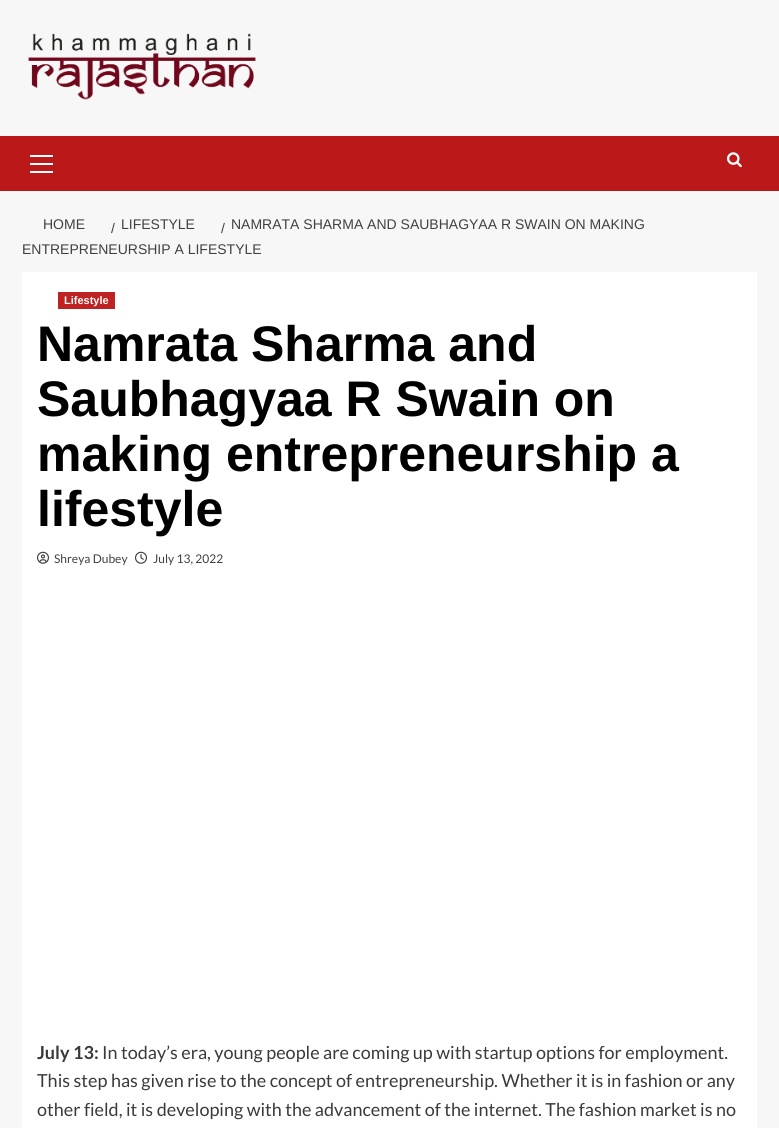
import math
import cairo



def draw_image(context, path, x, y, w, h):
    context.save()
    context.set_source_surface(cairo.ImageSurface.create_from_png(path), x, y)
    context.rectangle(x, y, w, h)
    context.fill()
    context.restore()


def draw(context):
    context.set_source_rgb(247 / 255, 247 / 255, 247 / 255)
    context.paint()
    draw_image(context, "images/1.png", 28, 33, 228, 67)
    context.set_source_rgb(187 / 255, 25 / 255, 25 / 255)
    context.rectangle(0, 136, 779, 55)
    context.fill()
    context.set_source_rgb(1, 1, 1)
    context.rectangle(30, 163, 23, 2)
    context.fill()
    context.rectangle(30, 155, 23, 2)
    context.fill()
    context.rectangle(30, 171, 23, 2)
    context.fill()
    draw_image(context, "images/2.png", 727, 152, 15, 16)
    context.rectangle(22, 272, 735, 856)
    context.fill()
    context.set_source_rgb(190 / 255, 34 / 255, 34 / 255)
    context.rectangle(58, 292, 57, 17)
    context.fill()
    draw_image(context, "images/3.png", 37, 551, 12, 13)
    draw_image(context, "images/4.png", 135, 551, 12, 13)
    context.select_font_face("Liberation Sans")
    context.set_font_size(14)
    context.set_source_rgb(64 / 255, 64 / 255, 64 / 255)
    context.move_to(221, 233)
    context.show_text("/")
    context.move_to(231, 229)
    context.show_text("NAMRATA SHARMA AND SAUBHAGYAA R SWAIN ON MAKING")
    context.move_to(22, 254)
    context.show_text("ENTREPRENEURSHIP A LIFESTYLE")
    context.move_to(43, 229)
    context.show_text("HOME")
    context.move_to(111, 233)
    context.show_text("/")
    context.move_to(121, 229)
    context.show_text("LIFESTYLE")
    context.select_font_face("Liberation Sans", cairo.FontSlant.NORMAL, cairo.FontWeight.BOLD)
    context.set_font_size(11)
    context.set_source_rgb(1, 1, 1)
    context.move_to(64, 304)
    context.show_text("Lifestyle")
    context.set_font_size(50)
    context.set_source_rgb(0, 0, 0)
    context.move_to(37, 361)
    context.show_text("Namrata Sharma and")
    context.move_to(37, 416)
    context.show_text("Saubhagyaa R Swain on")
    context.move_to(37, 471)
    context.show_text("making entrepreneurship a")
    context.move_to(37, 526)
    context.show_text("lifestyle")
    context.select_font_face("Lato")
    context.set_font_size(12)
    context.set_source_rgb(64 / 255, 64 / 255, 64 / 255)
    context.move_to(54, 563)
    context.show_text("Shreya Dubey")
    context.move_to(153, 563)
    context.show_text("July 13, 2022")
    context.select_font_face("Lato", cairo.FontSlant.NORMAL, cairo.FontWeight.BOLD)
    context.set_font_size(18)
    context.set_source_rgb(58 / 255, 58 / 255, 58 / 255)
    context.move_to(37, 1059)
    context.show_text("July 13:")
    context.select_font_face("Lato")
    context.move_to(102, 1059)
    context.show_text("In today’s era, young people are coming up with startup options for employment.")
    context.move_to(37, 1087)
    context.show_text("This step has given rise to the concept of entrepreneurship. Whether it is in fashion or any")
    context.move_to(37, 1116)
    context.show_text("other field, it is developing with the advancement of the internet. The fashion market is no")


surface = cairo.ImageSurface(cairo.Format.RGB24, 779, 1128)
context = cairo.Context(surface)
options = cairo.FontOptions()
options.set_hint_metrics(cairo.HintMetrics.OFF)
options.set_hint_style(cairo.HintStyle.NONE)
context.set_font_options(options)
context.set_miter_limit(4)
draw(context)
surface.write_to_png("out.png")
